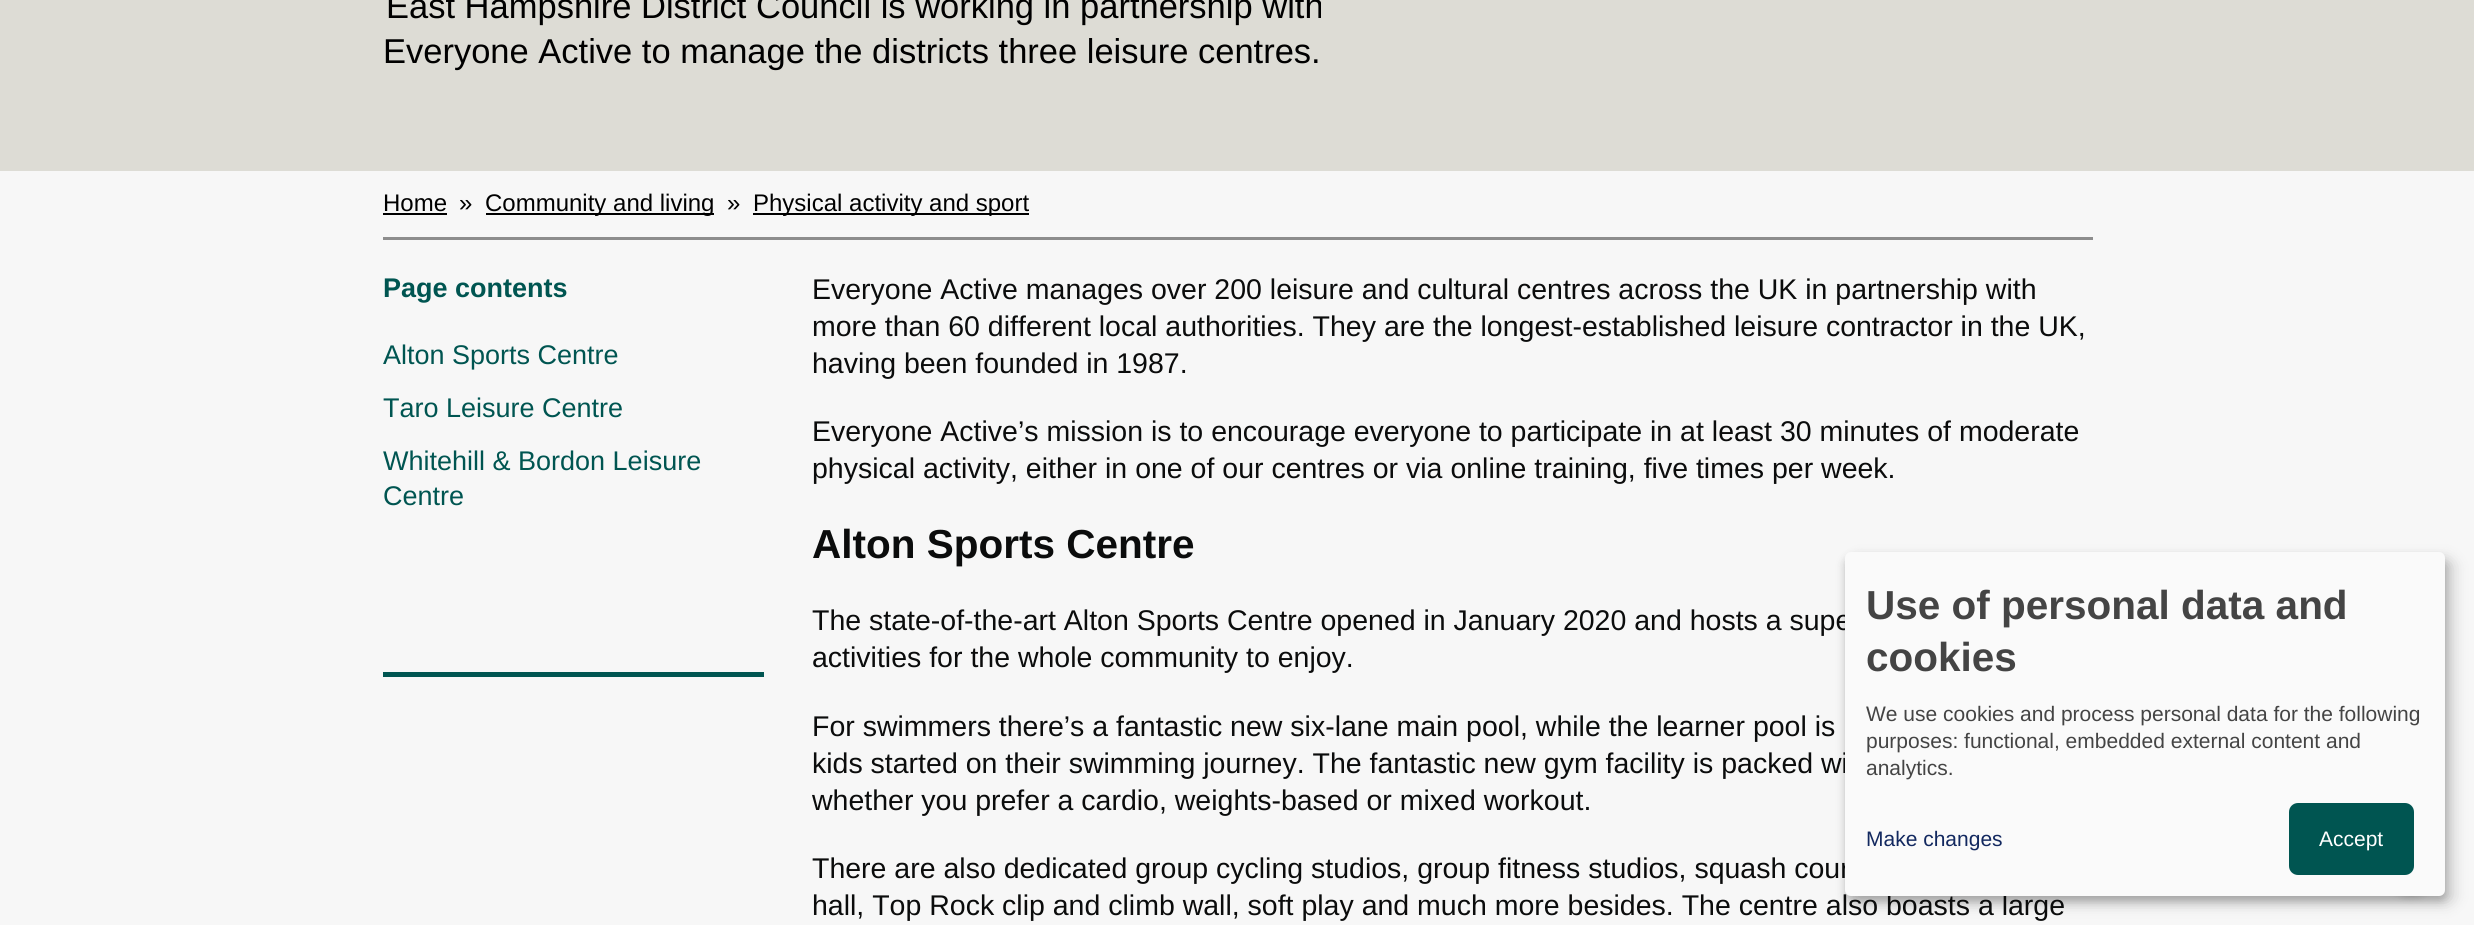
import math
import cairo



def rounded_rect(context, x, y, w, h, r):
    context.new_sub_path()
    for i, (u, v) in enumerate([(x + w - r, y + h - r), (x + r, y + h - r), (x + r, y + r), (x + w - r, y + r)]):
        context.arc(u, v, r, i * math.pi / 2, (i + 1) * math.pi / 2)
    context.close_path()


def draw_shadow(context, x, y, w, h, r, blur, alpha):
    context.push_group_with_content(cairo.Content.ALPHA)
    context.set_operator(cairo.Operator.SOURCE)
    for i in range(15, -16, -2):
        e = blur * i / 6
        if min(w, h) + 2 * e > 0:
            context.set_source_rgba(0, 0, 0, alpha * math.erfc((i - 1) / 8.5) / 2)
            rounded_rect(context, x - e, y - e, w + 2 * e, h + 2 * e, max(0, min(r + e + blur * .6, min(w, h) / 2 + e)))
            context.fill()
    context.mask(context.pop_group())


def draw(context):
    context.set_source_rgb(247 / 255, 247 / 255, 247 / 255)
    context.paint()
    context.set_source_rgb(221 / 255, 220 / 255, 213 / 255)
    context.rectangle(0, 0, 2474, 171)
    context.fill()
    context.set_source_rgb(141 / 255, 141 / 255, 141 / 255)
    context.rectangle(383, 237, 1710, 3)
    context.fill()
    context.set_source_rgb(0, 0, 0)
    context.rectangle(383, 213, 64, 2)
    context.fill()
    context.rectangle(486, 213, 228, 2)
    context.fill()
    context.rectangle(753, 213, 276, 2)
    context.fill()
    context.set_source_rgb(0, 85 / 255, 81 / 255)
    context.rectangle(383, 672, 381, 5)
    context.fill()
    context.set_source_rgb(0, 0, 0)
    draw_shadow(context, 1853, 560, 600, 343, 6, 7.5, 0.19)
    draw_shadow(context, 1845, 558, 600, 344, 6, 4.5, 0.2)
    draw_shadow(context, 2385, 843, 53, 53, 26.5, 4, 0.2)
    context.select_font_face("Liberation Sans")
    context.set_font_size(34.5)
    context.set_source_rgb(0, 0, 0)
    context.move_to(386, 18)
    context.show_text("East Hampshire District Council is working in partnership with")
    context.move_to(383, 63)
    context.show_text("Everyone Active to manage the districts three leisure centres.")
    context.set_font_size(24)
    context.move_to(383, 211)
    context.show_text("Home")
    context.move_to(459, 211)
    context.show_text("»")
    context.move_to(485, 211)
    context.show_text("Community and living")
    context.move_to(727, 211)
    context.show_text("»")
    context.move_to(753, 211)
    context.show_text("Physical activity and sport")
    context.select_font_face("Liberation Sans", cairo.FontSlant.NORMAL, cairo.FontWeight.BOLD)
    context.set_font_size(27)
    context.set_source_rgb(0, 85 / 255, 81 / 255)
    context.move_to(383, 297)
    context.show_text("Page contents")
    context.select_font_face("Liberation Sans")
    context.move_to(383, 364)
    context.show_text("Alton Sports Centre")
    context.move_to(383, 417)
    context.show_text("Taro Leisure Centre")
    context.move_to(383, 470)
    context.show_text("Whitehill & Bordon Leisure")
    context.move_to(383, 505)
    context.show_text("Centre")
    context.set_font_size(28.5)
    context.set_source_rgb(11 / 255, 12 / 255, 12 / 255)
    context.move_to(812, 299)
    context.show_text("Everyone Active manages over 200 leisure and cultural centres across the UK in partnership with")
    context.move_to(812, 336)
    context.show_text("more than 60 different local authorities. They are the longest-established leisure contractor in the UK,")
    context.move_to(812, 373)
    context.show_text("having been founded in 1987.")
    context.move_to(812, 441)
    context.show_text("Everyone Active’s mission is to encourage everyone to participate in at least 30 minutes of moderate")
    context.move_to(812, 478)
    context.show_text("physical activity, either in one of our centres or via online training, five times per week.")
    context.select_font_face("Liberation Sans", cairo.FontSlant.NORMAL, cairo.FontWeight.BOLD)
    context.set_font_size(40.5)
    context.move_to(812, 558)
    context.show_text("Alton Sports Centre")
    context.select_font_face("Liberation Sans")
    context.set_font_size(28.5)
    context.move_to(812, 630)
    context.show_text("The state-of-the-art Alton Sports Centre opened in January 2020 and hosts a supe")
    context.move_to(812, 667)
    context.show_text("activities for the whole community to enjoy.")
    context.move_to(812, 736)
    context.show_text("For swimmers there’s a fantastic new six-lane main pool, while the learner pool is")
    context.move_to(812, 773)
    context.show_text("kids started on their swimming journey. The fantastic new gym facility is packed wi")
    context.move_to(812, 810)
    context.show_text("whether you prefer a cardio, weights-based or mixed workout.")
    context.move_to(812, 878)
    context.show_text("There are also dedicated group cycling studios, group fitness studios, squash cour")
    context.move_to(812, 915)
    context.show_text("hall, Top Rock clip and climb wall, soft play and much more besides. The centre also boasts a large")
    context.set_source_rgb(250 / 255, 250 / 255, 250 / 255)
    rounded_rect(context, 1845, 552, 600, 344, 6)
    context.fill()
    context.select_font_face("Liberation Sans", cairo.FontSlant.NORMAL, cairo.FontWeight.BOLD)
    context.set_font_size(40.5)
    context.set_source_rgb(68 / 255, 68 / 255, 68 / 255)
    context.move_to(1866, 619)
    context.show_text("Use of personal data and")
    context.move_to(1866, 671)
    context.show_text("cookies")
    context.select_font_face("Liberation Sans")
    context.set_font_size(21)
    context.move_to(1866, 721)
    context.show_text("We use cookies and process personal data for the following")
    context.move_to(1866, 748)
    context.show_text("purposes: functional, embedded external content and")
    context.move_to(1866, 775)
    context.show_text("analytics.")
    context.set_source_rgb(18 / 255, 40 / 255, 95 / 255)
    context.move_to(1866, 846)
    context.show_text("Make changes")
    context.set_source_rgb(0, 85 / 255, 81 / 255)
    rounded_rect(context, 2291.5, 805.5, 120, 67, 6.5)
    context.fill_preserve()
    context.set_line_width(5)
    context.stroke()
    context.set_source_rgb(1, 1, 1)
    context.move_to(2319, 846)
    context.show_text("Accept")


surface = cairo.ImageSurface(cairo.Format.RGB24, 2474, 925)
context = cairo.Context(surface)
options = cairo.FontOptions()
options.set_hint_metrics(cairo.HintMetrics.OFF)
options.set_hint_style(cairo.HintStyle.NONE)
context.set_font_options(options)
context.set_miter_limit(4)
draw(context)
surface.write_to_png("out.png")
